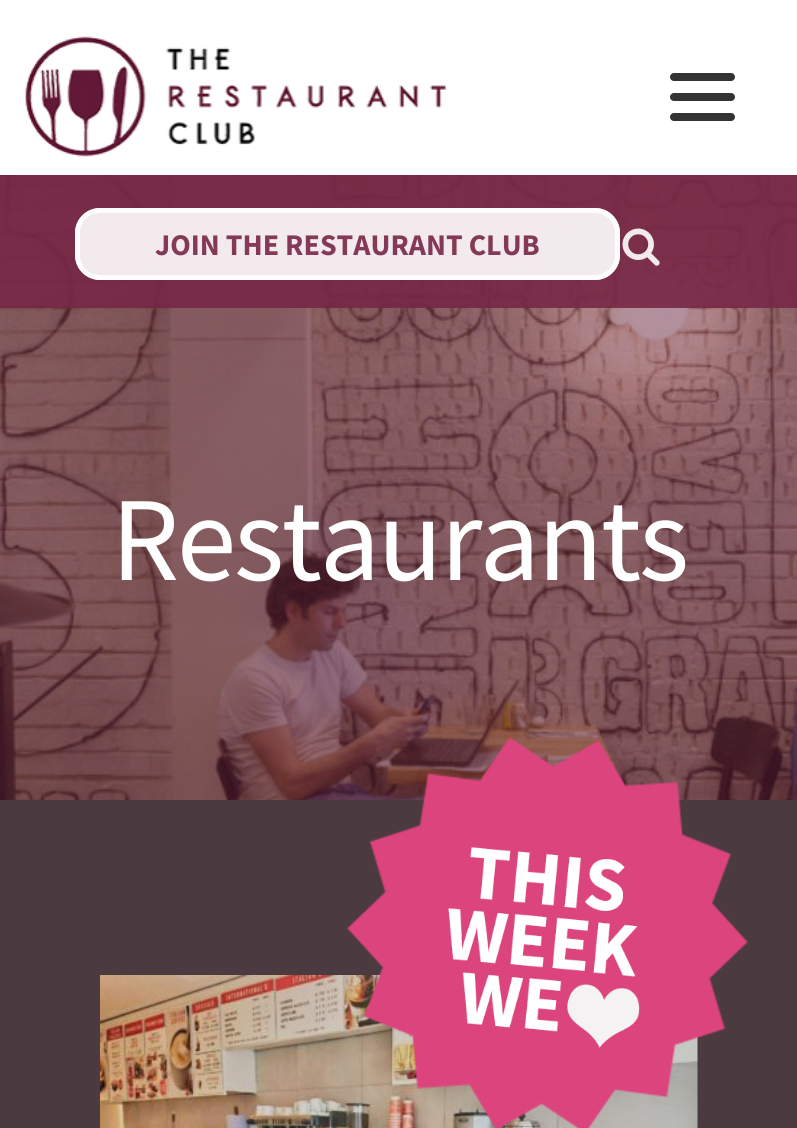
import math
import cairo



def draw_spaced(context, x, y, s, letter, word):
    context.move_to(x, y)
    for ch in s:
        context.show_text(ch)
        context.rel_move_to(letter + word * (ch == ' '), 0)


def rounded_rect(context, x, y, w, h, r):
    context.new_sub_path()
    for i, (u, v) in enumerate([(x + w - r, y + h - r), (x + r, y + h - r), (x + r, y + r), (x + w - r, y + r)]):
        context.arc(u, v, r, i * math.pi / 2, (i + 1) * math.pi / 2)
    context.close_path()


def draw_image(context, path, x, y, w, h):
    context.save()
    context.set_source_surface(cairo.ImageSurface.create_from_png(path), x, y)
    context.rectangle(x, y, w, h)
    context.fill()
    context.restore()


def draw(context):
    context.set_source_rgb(1, 1, 1)
    context.paint()
    draw_image(context, "images/1.png", 25, 36, 421, 121)
    context.set_source_rgb(51 / 255, 51 / 255, 51 / 255)
    rounded_rect(context, 670, 73, 65, 8, 4)
    context.fill()
    rounded_rect(context, 670, 93, 65, 8, 4)
    context.fill()
    rounded_rect(context, 670, 113, 65, 8, 4)
    context.fill()
    draw_image(context, "images/3.png", 0, 175, 797, 625)
    context.set_source_rgba(120 / 255, 39 / 255, 69 / 255, 0.9)
    context.rectangle(0, 175, 797, 133)
    context.fill()
    context.set_source_rgba(1, 1, 1, 0.9)
    rounded_rect(context, 75, 208, 545, 72, 25)
    context.fill()
    rounded_rect(context, 77.5, 210.5, 540, 67, 22.5)
    context.set_line_width(5)
    context.stroke()
    draw_image(context, "images/2.png", 622, 228, 38, 38)
    context.set_source_rgb(75 / 255, 58 / 255, 64 / 255)
    context.rectangle(0, 800, 797, 328)
    context.fill()
    draw_image(context, "images/5.png", 100, 975, 598, 153)
    draw_image(context, "images/4.png", 347, 737, 401, 391)
    context.select_font_face("Source Sans Pro", cairo.FontSlant.NORMAL, cairo.FontWeight.BOLD)
    context.set_font_size(30)
    context.set_source_rgb(132 / 255, 58 / 255, 86 / 255)
    context.move_to(155, 255)
    context.show_text("JOIN THE RESTAURANT CLUB")
    context.select_font_face("Source Sans Pro")
    context.set_font_size(120)
    context.set_source_rgb(1, 1, 1)
    draw_spaced(context, 111, 580, "Restaurants", -2.5, 0)


surface = cairo.ImageSurface(cairo.Format.RGB24, 797, 1128)
context = cairo.Context(surface)
options = cairo.FontOptions()
options.set_hint_metrics(cairo.HintMetrics.OFF)
options.set_hint_style(cairo.HintStyle.NONE)
context.set_font_options(options)
context.set_miter_limit(4)
draw(context)
surface.write_to_png("out.png")
